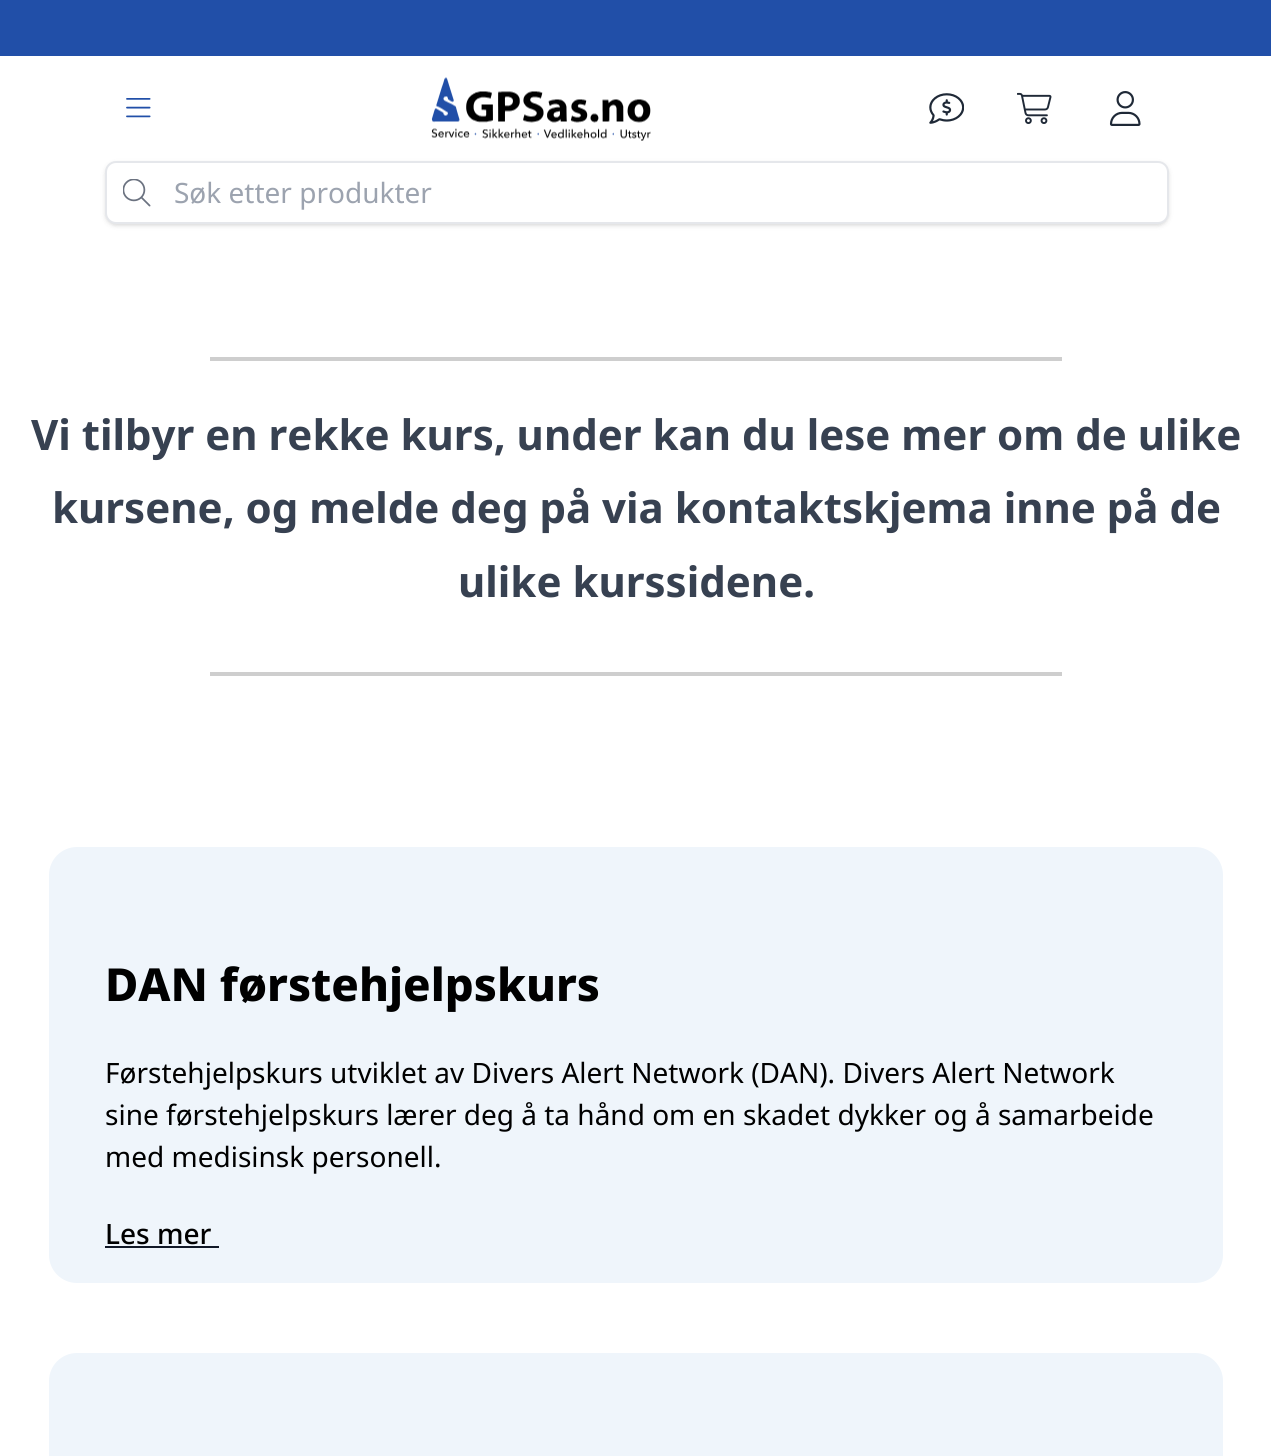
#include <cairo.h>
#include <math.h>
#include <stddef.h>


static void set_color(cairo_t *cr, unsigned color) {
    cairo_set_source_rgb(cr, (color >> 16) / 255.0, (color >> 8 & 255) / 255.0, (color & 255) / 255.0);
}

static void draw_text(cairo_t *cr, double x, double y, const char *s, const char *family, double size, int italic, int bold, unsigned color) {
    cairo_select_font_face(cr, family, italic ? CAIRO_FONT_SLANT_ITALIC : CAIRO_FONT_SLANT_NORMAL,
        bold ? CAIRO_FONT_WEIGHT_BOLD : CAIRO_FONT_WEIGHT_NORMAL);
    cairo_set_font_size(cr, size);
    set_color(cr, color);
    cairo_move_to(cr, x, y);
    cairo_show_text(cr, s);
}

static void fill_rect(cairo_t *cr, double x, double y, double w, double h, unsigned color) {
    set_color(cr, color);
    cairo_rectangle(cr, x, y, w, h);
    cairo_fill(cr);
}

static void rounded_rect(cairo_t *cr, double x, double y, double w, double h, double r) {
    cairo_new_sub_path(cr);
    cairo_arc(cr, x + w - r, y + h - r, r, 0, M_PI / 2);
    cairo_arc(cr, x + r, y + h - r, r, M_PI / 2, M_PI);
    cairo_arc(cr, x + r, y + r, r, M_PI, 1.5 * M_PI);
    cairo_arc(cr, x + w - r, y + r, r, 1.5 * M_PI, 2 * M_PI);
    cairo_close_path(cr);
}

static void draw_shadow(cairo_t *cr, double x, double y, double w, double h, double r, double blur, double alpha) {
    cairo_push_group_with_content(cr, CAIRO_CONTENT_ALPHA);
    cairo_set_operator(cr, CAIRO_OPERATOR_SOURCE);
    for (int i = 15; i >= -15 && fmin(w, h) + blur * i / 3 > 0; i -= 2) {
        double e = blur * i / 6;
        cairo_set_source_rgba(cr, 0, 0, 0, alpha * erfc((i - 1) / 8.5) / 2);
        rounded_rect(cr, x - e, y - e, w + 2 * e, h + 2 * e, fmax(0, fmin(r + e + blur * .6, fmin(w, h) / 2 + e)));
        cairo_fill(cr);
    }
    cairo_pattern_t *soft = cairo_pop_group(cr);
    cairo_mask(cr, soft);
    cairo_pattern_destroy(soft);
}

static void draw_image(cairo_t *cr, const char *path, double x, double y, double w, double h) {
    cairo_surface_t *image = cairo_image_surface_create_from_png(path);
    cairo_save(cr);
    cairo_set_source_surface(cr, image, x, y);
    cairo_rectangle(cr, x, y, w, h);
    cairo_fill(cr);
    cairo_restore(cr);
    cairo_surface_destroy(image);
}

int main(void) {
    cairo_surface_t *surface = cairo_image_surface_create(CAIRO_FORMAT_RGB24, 1271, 1456);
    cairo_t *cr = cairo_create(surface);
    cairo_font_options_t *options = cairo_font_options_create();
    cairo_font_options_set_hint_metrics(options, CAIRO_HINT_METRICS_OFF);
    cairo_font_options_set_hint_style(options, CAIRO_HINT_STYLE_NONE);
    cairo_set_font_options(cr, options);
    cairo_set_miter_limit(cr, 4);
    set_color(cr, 0xFFFFFF);
    cairo_paint(cr);
    fill_rect(cr, 0, 0, 1271, 56, 0x214FA8);
    draw_image(cr, "assets/img1.png", 126, 98, 25, 20);
    draw_image(cr, "assets/img2.png", 431, 77, 220, 64);
    draw_image(cr, "assets/img3.png", 929, 93, 35, 31);
    draw_image(cr, "assets/img4.png", 1017, 92, 35, 32);
    draw_image(cr, "assets/img5.png", 1109, 91, 32, 35);
    set_color(cr, 0x000000);
    draw_shadow(cr, 107, 165, 1060, 59, 9, 2, 0.1);
    draw_shadow(cr, 105, 163, 1064, 63, 11, 2.5, 0.1);
    set_color(cr, 0xFFFFFF);
    rounded_rect(cr, 106, 162, 1062, 61, 10);
    cairo_fill_preserve(cr);
    set_color(cr, 0xE5E7EB);
    cairo_stroke(cr);
    draw_image(cr, "assets/img6.png", 123, 179, 28, 28);
    draw_text(cr, 174, 203, "Søk etter produkter", "Noto Sans", 28, 0, 0, 0x9CA3AF);
    fill_rect(cr, 210, 357, 852, 4, 0xCECECE);
    draw_text(cr, 31, 450, "Vi tilbyr en rekke kurs, under kan du lese mer om de ulike", "Noto Sans", 42, 0, 1, 0x374151);
    draw_text(cr, 52, 523, "kursene, og melde deg på via kontaktskjema inne på de", "Noto Sans", 42, 0, 1, 0x374151);
    draw_text(cr, 458, 597, "ulike kurssidene.", "Noto Sans", 42, 0, 1, 0x374151);
    fill_rect(cr, 210, 672, 852, 4, 0xCECECE);
    set_color(cr, 0xEFF5FB);
    rounded_rect(cr, 49, 847, 1174, 436, 28);
    cairo_fill(cr);
    draw_text(cr, 105, 1001, "DAN førstehjelpskurs", "Noto Sans ExtraBold", 45.5, 0, 0, 0x000000);
    draw_text(cr, 105, 1083, "Førstehjelpskurs utviklet av Divers Alert Network (DAN). Divers Alert Network", "Noto Sans", 28, 0, 0, 0x000000);
    draw_text(cr, 105, 1125, "sine førstehjelpskurs lærer deg å ta hånd om en skadet dykker og å samarbeide", "Noto Sans", 28, 0, 0, 0x000000);
    draw_text(cr, 105, 1167, "med medisinsk personell.", "Noto Sans", 28, 0, 0, 0x000000);
    draw_text(cr, 105, 1244, "Les mer", "Noto Sans Medium", 28, 0, 0, 0x000000);
    fill_rect(cr, 105, 1246, 114, 2, 0x111827);
    set_color(cr, 0xEFF5FB);
    rounded_rect(cr, 49, 1353, 1174, 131, 28);
    cairo_fill(cr);
    cairo_surface_write_to_png(surface, "output.png");
    cairo_font_options_destroy(options);
    cairo_destroy(cr);
    cairo_surface_destroy(surface);
    return 0;
}
